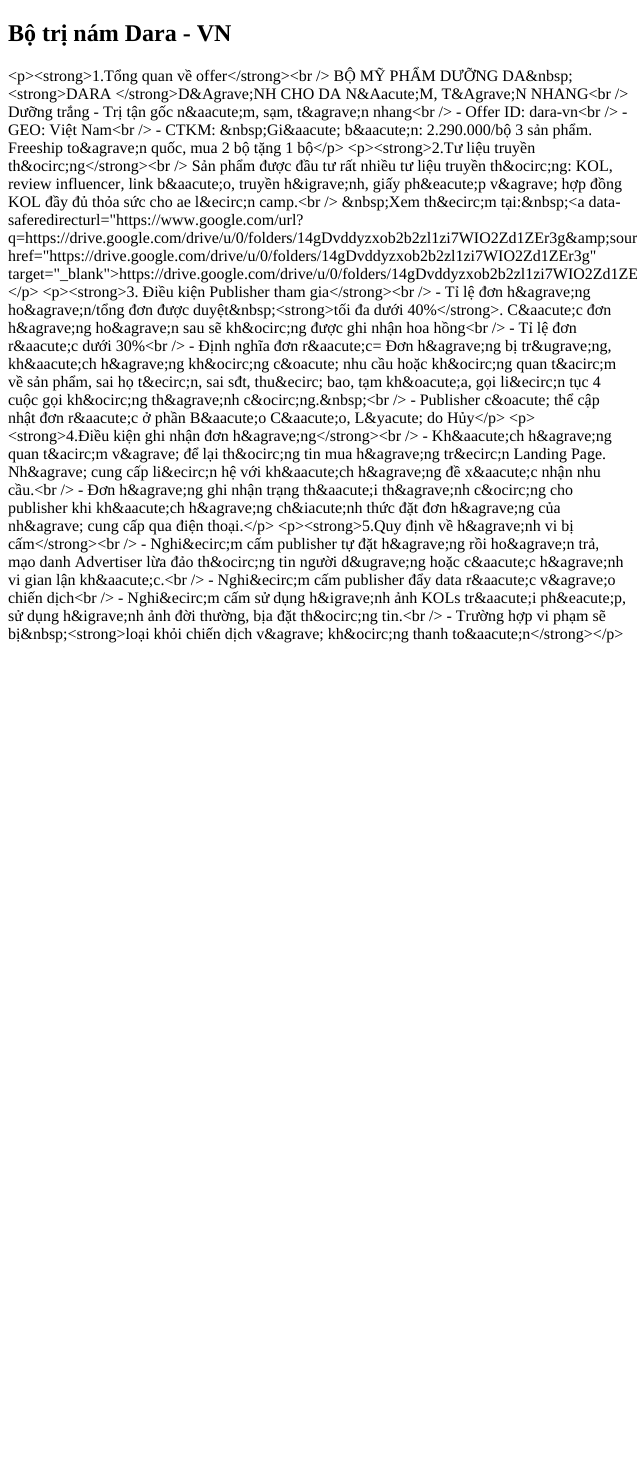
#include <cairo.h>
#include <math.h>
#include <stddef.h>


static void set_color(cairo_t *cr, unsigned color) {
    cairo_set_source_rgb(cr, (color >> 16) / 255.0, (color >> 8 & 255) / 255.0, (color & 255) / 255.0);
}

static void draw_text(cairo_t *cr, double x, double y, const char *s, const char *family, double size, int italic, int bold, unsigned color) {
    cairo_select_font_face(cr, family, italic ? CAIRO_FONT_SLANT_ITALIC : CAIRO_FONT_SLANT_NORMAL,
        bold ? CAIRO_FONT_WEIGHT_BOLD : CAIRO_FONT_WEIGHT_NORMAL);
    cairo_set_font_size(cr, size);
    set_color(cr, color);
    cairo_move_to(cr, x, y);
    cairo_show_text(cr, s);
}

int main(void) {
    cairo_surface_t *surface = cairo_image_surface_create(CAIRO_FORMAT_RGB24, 637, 1462);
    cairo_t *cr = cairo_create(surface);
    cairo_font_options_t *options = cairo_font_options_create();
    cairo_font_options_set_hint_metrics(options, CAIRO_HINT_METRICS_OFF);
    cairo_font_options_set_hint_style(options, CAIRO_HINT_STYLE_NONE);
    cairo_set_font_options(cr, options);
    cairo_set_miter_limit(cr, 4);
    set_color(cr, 0xFFFFFF);
    cairo_paint(cr);
    draw_text(cr, 8, 41, "Bộ trị nám Dara - VN", "Liberation Serif", 24, 0, 1, 0x000000);
    draw_text(cr, 8, 81, "<p><strong>1.Tổng quan về offer</strong><br /> BỘ MỸ PHẨM DƯỠNG DA&nbsp;", "Liberation Serif", 16, 0, 0, 0x000000);
    draw_text(cr, 8, 99, "<strong>DARA </strong>D&Agrave;NH CHO DA N&Aacute;M, T&Agrave;N NHANG<br />", "Liberation Serif", 16, 0, 0, 0x000000);
    draw_text(cr, 8, 117, "Dưỡng trắng - Trị tận gốc n&aacute;m, sạm, t&agrave;n nhang<br /> - Offer ID: dara-vn<br /> -", "Liberation Serif", 16, 0, 0, 0x000000);
    draw_text(cr, 8, 135, "GEO: Việt Nam<br /> - CTKM: &nbsp;Gi&aacute; b&aacute;n: 2.290.000/bộ 3 sản phẩm.", "Liberation Serif", 16, 0, 0, 0x000000);
    draw_text(cr, 8, 153, "Freeship to&agrave;n quốc, mua 2 bộ tặng 1 bộ</p> <p><strong>2.Tư liệu truyền", "Liberation Serif", 16, 0, 0, 0x000000);
    draw_text(cr, 8, 171, "th&ocirc;ng</strong><br /> Sản phẩm được đầu tư rất nhiều tư liệu truyền th&ocirc;ng: KOL,", "Liberation Serif", 16, 0, 0, 0x000000);
    draw_text(cr, 8, 189, "review influencer, link b&aacute;o, truyền h&igrave;nh, giấy ph&eacute;p v&agrave; hợp đồng", "Liberation Serif", 16, 0, 0, 0x000000);
    draw_text(cr, 8, 207, "KOL đầy đủ thỏa sức cho ae l&ecirc;n camp.<br /> &nbsp;Xem th&ecirc;m tại:&nbsp;<a data-", "Liberation Serif", 16, 0, 0, 0x000000);
    draw_text(cr, 8, 225, "saferedirecturl=\"https://www.google.com/url?", "Liberation Serif", 16, 0, 0, 0x000000);
    draw_text(cr, 8, 243, "q=https://drive.google.com/drive/u/0/folders/14gDvddyzxob2b2zl1zi7WIO2Zd1ZEr3g&amp;sour", "Liberation Serif", 16, 0, 0, 0x000000);
    draw_text(cr, 8, 261, "href=\"https://drive.google.com/drive/u/0/folders/14gDvddyzxob2b2zl1zi7WIO2Zd1ZEr3g\"", "Liberation Serif", 16, 0, 0, 0x000000);
    draw_text(cr, 8, 279, "target=\"_blank\">https://drive.google.com/drive/u/0/folders/14gDvddyzxob2b2zl1zi7WIO2Zd1ZE", "Liberation Serif", 16, 0, 0, 0x000000);
    draw_text(cr, 8, 297, "</p> <p><strong>3. Điều kiện Publisher tham gia</strong><br /> - Tỉ lệ đơn h&agrave;ng", "Liberation Serif", 16, 0, 0, 0x000000);
    draw_text(cr, 8, 315, "ho&agrave;n/tổng đơn được duyệt&nbsp;<strong>tối đa dưới 40%</strong>. C&aacute;c đơn", "Liberation Serif", 16, 0, 0, 0x000000);
    draw_text(cr, 8, 333, "h&agrave;ng ho&agrave;n sau sẽ kh&ocirc;ng được ghi nhận hoa hồng<br /> - Tỉ lệ đơn", "Liberation Serif", 16, 0, 0, 0x000000);
    draw_text(cr, 8, 351, "r&aacute;c dưới 30%<br /> - Định nghĩa đơn r&aacute;c= Đơn h&agrave;ng bị tr&ugrave;ng,", "Liberation Serif", 16, 0, 0, 0x000000);
    draw_text(cr, 8, 369, "kh&aacute;ch h&agrave;ng kh&ocirc;ng c&oacute; nhu cầu hoặc kh&ocirc;ng quan t&acirc;m", "Liberation Serif", 16, 0, 0, 0x000000);
    draw_text(cr, 8, 387, "về sản phẩm, sai họ t&ecirc;n, sai sđt, thu&ecirc; bao, tạm kh&oacute;a, gọi li&ecirc;n tục 4", "Liberation Serif", 16, 0, 0, 0x000000);
    draw_text(cr, 8, 405, "cuộc gọi kh&ocirc;ng th&agrave;nh c&ocirc;ng.&nbsp;<br /> - Publisher c&oacute; thể cập", "Liberation Serif", 16, 0, 0, 0x000000);
    draw_text(cr, 8, 423, "nhật đơn r&aacute;c ở phần B&aacute;o C&aacute;o, L&yacute; do Hủy</p> <p>", "Liberation Serif", 16, 0, 0, 0x000000);
    draw_text(cr, 8, 441, "<strong>4.Điều kiện ghi nhận đơn h&agrave;ng</strong><br /> - Kh&aacute;ch h&agrave;ng", "Liberation Serif", 16, 0, 0, 0x000000);
    draw_text(cr, 8, 459, "quan t&acirc;m v&agrave; để lại th&ocirc;ng tin mua h&agrave;ng tr&ecirc;n Landing Page.", "Liberation Serif", 16, 0, 0, 0x000000);
    draw_text(cr, 8, 477, "Nh&agrave; cung cấp li&ecirc;n hệ với kh&aacute;ch h&agrave;ng đề x&aacute;c nhận nhu", "Liberation Serif", 16, 0, 0, 0x000000);
    draw_text(cr, 8, 495, "cầu.<br /> - Đơn h&agrave;ng ghi nhận trạng th&aacute;i th&agrave;nh c&ocirc;ng cho", "Liberation Serif", 16, 0, 0, 0x000000);
    draw_text(cr, 8, 513, "publisher khi kh&aacute;ch h&agrave;ng ch&iacute;nh thức đặt đơn h&agrave;ng của", "Liberation Serif", 16, 0, 0, 0x000000);
    draw_text(cr, 8, 531, "nh&agrave; cung cấp qua điện thoại.</p> <p><strong>5.Quy định về h&agrave;nh vi bị", "Liberation Serif", 16, 0, 0, 0x000000);
    draw_text(cr, 8, 549, "cấm</strong><br /> - Nghi&ecirc;m cấm publisher tự đặt h&agrave;ng rồi ho&agrave;n trả,", "Liberation Serif", 16, 0, 0, 0x000000);
    draw_text(cr, 8, 567, "mạo danh Advertiser lừa đảo th&ocirc;ng tin người d&ugrave;ng hoặc c&aacute;c h&agrave;nh", "Liberation Serif", 16, 0, 0, 0x000000);
    draw_text(cr, 8, 585, "vi gian lận kh&aacute;c.<br /> - Nghi&ecirc;m cấm publisher đẩy data r&aacute;c v&agrave;o", "Liberation Serif", 16, 0, 0, 0x000000);
    draw_text(cr, 8, 603, "chiến dịch<br /> - Nghi&ecirc;m cấm sử dụng h&igrave;nh ảnh KOLs tr&aacute;i ph&eacute;p,", "Liberation Serif", 16, 0, 0, 0x000000);
    draw_text(cr, 8, 621, "sử dụng h&igrave;nh ảnh đời thường, bịa đặt th&ocirc;ng tin.<br /> - Trường hợp vi phạm sẽ", "Liberation Serif", 16, 0, 0, 0x000000);
    draw_text(cr, 8, 639, "bị&nbsp;<strong>loại khỏi chiến dịch v&agrave; kh&ocirc;ng thanh to&aacute;n</strong></p>", "Liberation Serif", 16, 0, 0, 0x000000);
    cairo_surface_write_to_png(surface, "output.png");
    cairo_font_options_destroy(options);
    cairo_destroy(cr);
    cairo_surface_destroy(surface);
    return 0;
}
